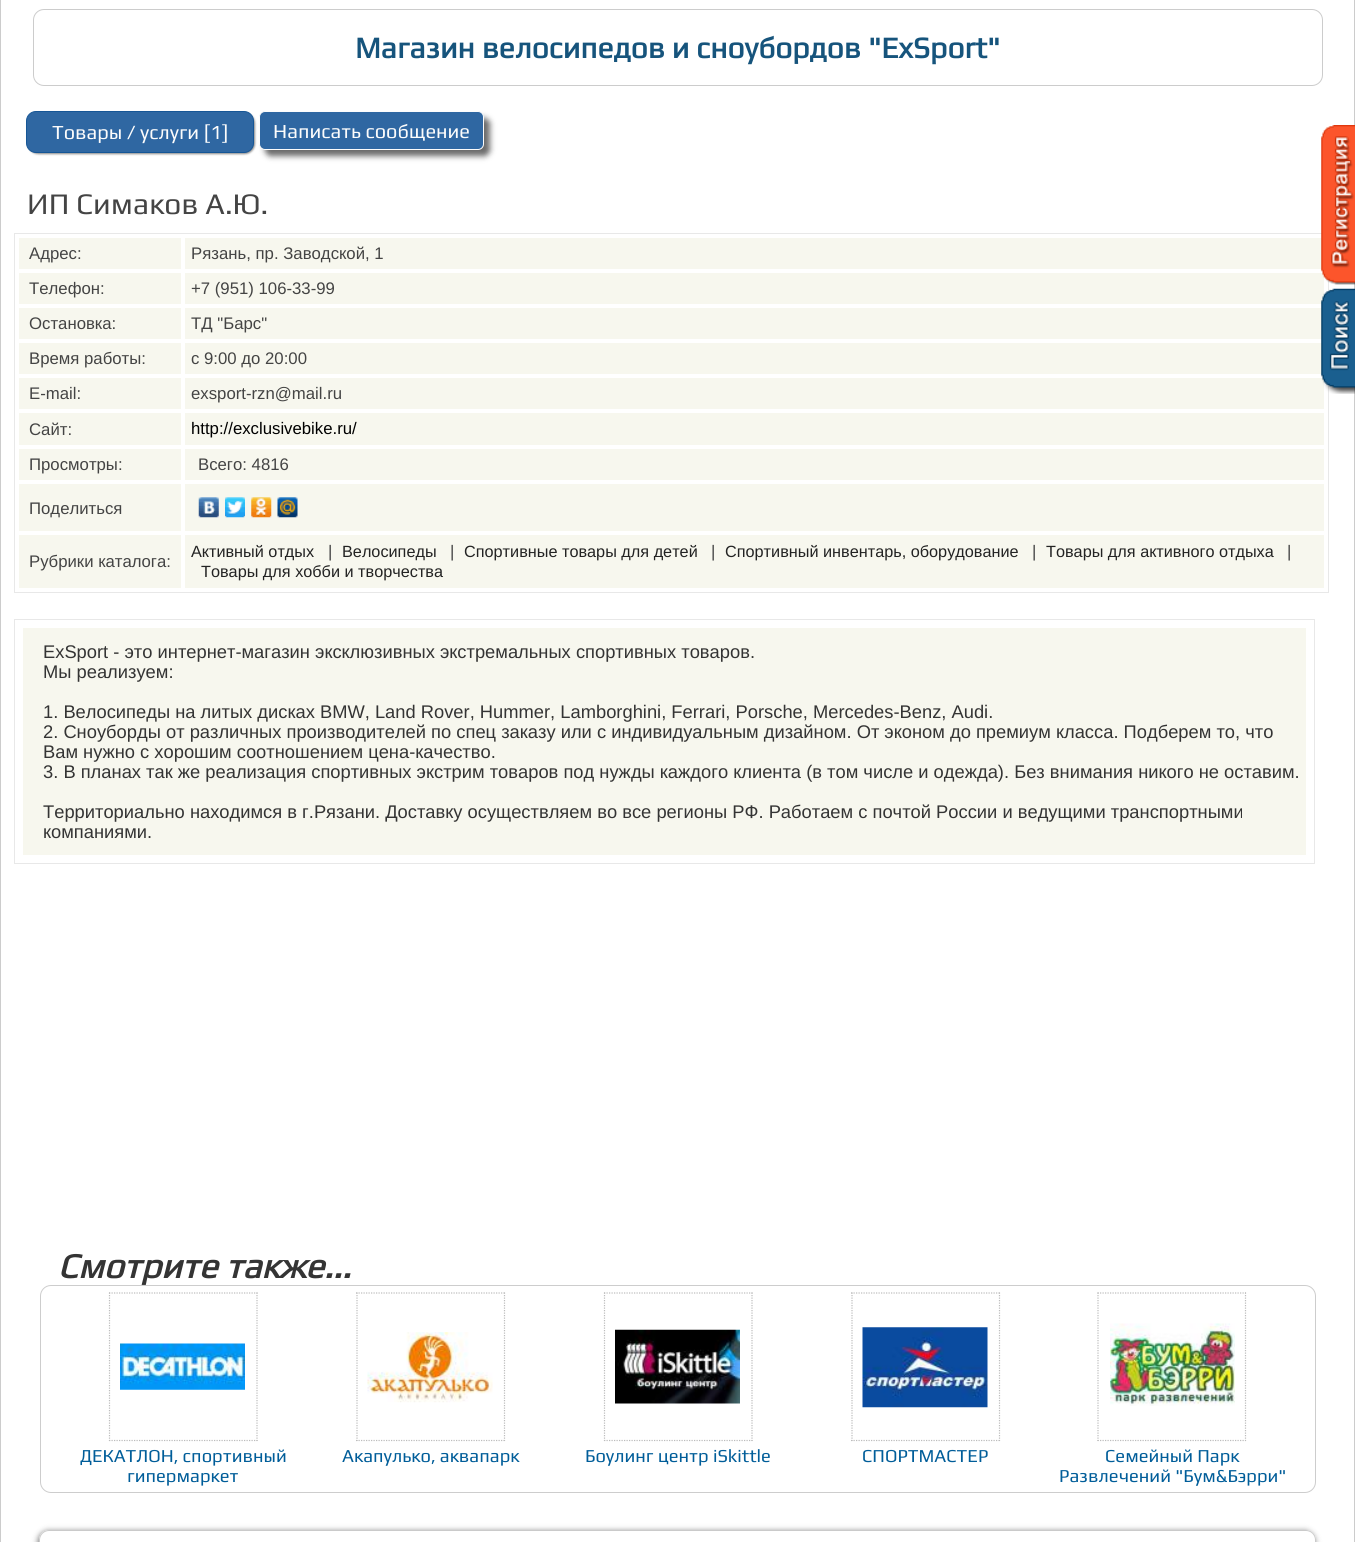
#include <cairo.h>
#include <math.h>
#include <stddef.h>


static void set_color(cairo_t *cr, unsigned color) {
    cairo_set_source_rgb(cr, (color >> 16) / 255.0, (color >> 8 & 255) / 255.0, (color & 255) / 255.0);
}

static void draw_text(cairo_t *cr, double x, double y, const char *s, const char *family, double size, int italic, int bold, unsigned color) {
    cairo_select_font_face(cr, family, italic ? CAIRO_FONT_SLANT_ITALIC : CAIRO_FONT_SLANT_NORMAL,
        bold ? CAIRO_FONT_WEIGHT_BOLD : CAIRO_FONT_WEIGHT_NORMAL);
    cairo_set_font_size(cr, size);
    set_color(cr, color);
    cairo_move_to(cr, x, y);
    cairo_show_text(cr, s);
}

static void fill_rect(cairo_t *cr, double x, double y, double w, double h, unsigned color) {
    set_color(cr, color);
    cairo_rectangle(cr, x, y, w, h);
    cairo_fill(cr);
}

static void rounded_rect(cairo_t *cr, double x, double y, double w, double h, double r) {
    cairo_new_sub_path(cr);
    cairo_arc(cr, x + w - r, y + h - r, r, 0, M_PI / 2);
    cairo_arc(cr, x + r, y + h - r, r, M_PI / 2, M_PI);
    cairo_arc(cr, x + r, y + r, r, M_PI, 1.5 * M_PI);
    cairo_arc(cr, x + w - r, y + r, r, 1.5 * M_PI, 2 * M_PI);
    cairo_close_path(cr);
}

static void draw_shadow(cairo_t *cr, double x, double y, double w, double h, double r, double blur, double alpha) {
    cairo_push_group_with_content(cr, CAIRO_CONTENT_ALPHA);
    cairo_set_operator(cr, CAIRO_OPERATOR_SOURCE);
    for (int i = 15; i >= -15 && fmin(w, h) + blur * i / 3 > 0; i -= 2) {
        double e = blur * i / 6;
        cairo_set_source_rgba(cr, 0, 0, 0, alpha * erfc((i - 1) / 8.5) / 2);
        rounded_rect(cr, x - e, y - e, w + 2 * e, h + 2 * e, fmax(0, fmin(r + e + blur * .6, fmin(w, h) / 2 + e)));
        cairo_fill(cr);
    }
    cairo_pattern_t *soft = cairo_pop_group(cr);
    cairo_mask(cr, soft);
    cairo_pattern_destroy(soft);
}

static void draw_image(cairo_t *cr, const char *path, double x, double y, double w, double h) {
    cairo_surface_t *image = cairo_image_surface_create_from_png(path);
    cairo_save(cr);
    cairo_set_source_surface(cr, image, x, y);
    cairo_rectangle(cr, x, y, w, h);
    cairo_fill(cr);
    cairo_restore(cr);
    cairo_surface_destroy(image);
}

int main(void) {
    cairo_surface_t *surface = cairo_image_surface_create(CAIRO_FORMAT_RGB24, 1355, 1542);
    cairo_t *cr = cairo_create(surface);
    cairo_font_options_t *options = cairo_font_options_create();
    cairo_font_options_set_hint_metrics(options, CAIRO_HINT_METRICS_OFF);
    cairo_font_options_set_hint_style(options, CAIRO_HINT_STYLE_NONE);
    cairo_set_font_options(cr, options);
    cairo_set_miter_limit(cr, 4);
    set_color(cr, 0xFFFFFF);
    cairo_paint(cr);
    cairo_rectangle(cr, 0.5, -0.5, 1354, 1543);
    set_color(cr, 0xCCCCCC);
    cairo_set_line_width(cr, 1);
    cairo_stroke(cr);
    rounded_rect(cr, 33.5, 9.5, 1289, 76, 10.5);
    cairo_stroke(cr);
    draw_text(cr, 355, 58, "Магазин велосипедов и сноубордов \"ExSport\"", "Play", 30, 0, 1, 0x16547C);
    set_color(cr, 0x898989);
    draw_shadow(cr, 28, 113, 227, 41, 10, 1, 1);
    set_color(cr, 0x2F67A2);
    rounded_rect(cr, 26.5, 111.5, 227, 41, 9.5);
    cairo_fill_preserve(cr);
    set_color(cr, 0x165696);
    cairo_stroke(cr);
    draw_text(cr, 52, 139, "Товары / услуги [1]", "Play", 20, 0, 0, 0xFCFCFC);
    set_color(cr, 0x444444);
    draw_shadow(cr, 265, 118, 225, 38, 6, 3, 0.8);
    set_color(cr, 0x2F67A2);
    rounded_rect(cr, 259.5, 111.5, 224, 38, 5.5);
    cairo_fill_preserve(cr);
    set_color(cr, 0xFCFCFC);
    cairo_stroke(cr);
    draw_text(cr, 273, 138, "Написать сообщение", "Play", 20, 0, 0, 0xFCFCFC);
    draw_text(cr, 27, 214, "ИП Симаков А.Ю.", "Play", 30, 0, 0, 0x444444);
    cairo_rectangle(cr, 14.5, 233.5, 1314, 359);
    set_color(cr, 0xE8E8E8);
    cairo_stroke(cr);
    fill_rect(cr, 19, 238, 162, 31, 0xF7F7EE);
    draw_text(cr, 29, 259, "Адрес:", "Liberation Sans", 16.75, 0, 0, 0x444444);
    fill_rect(cr, 185, 238, 1137, 31, 0xF7F7EE);
    draw_text(cr, 191, 259, "Рязань, пр. Заводской, 1", "Liberation Sans", 16.75, 0, 0, 0x444444);
    fill_rect(cr, 19, 273, 162, 31, 0xF7F7EE);
    draw_text(cr, 29, 294, "Телефон:", "Liberation Sans", 16.75, 0, 0, 0x444444);
    fill_rect(cr, 185, 273, 1139, 31, 0xF7F7EE);
    draw_text(cr, 191, 294, "+7 (951) 106-33-99", "Liberation Sans", 16.75, 0, 0, 0x444444);
    fill_rect(cr, 19, 308, 162, 31, 0xF7F7EE);
    draw_text(cr, 29, 329, "Остановка:", "Liberation Sans", 16.75, 0, 0, 0x444444);
    fill_rect(cr, 185, 308, 1137, 31, 0xF7F7EE);
    draw_text(cr, 191, 329, "ТД \"Барс\"", "Liberation Sans", 16.75, 0, 0, 0x444444);
    fill_rect(cr, 19, 343, 162, 31, 0xF7F7EE);
    draw_text(cr, 29, 364, "Время работы:", "Liberation Sans", 16.75, 0, 0, 0x444444);
    fill_rect(cr, 185, 343, 1137, 31, 0xF7F7EE);
    draw_text(cr, 191, 364, "с 9:00 до 20:00", "Liberation Sans", 16.75, 0, 0, 0x444444);
    fill_rect(cr, 19, 378, 162, 31, 0xF7F7EE);
    draw_text(cr, 29, 399, "E-mail:", "Liberation Sans", 16.75, 0, 0, 0x444444);
    fill_rect(cr, 185, 378, 1139, 31, 0xF7F7EE);
    draw_text(cr, 191, 399, "exsport-rzn@mail.ru", "Liberation Sans", 16.75, 0, 0, 0x444444);
    fill_rect(cr, 19, 413, 162, 32, 0xF7F7EE);
    draw_text(cr, 29, 435, "Сайт:", "Liberation Sans", 16.75, 0, 0, 0x444444);
    fill_rect(cr, 185, 413, 1139, 32, 0xF7F7EE);
    draw_text(cr, 191, 434, "http://exclusivebike.ru/", "Liberation Sans", 16.75, 0, 0, 0x000000);
    fill_rect(cr, 19, 449, 162, 31, 0xF7F7EE);
    draw_text(cr, 29, 470, "Просмотры:", "Liberation Sans", 16.75, 0, 0, 0x444444);
    fill_rect(cr, 185, 449, 1139, 31, 0xF7F7EE);
    draw_text(cr, 198, 470, "Всего: 4816", "Liberation Sans", 16.75, 0, 0, 0x444444);
    fill_rect(cr, 19, 484, 162, 47, 0xF7F7EE);
    draw_text(cr, 29, 514, "Поделиться", "Liberation Sans", 16.75, 0, 0, 0x444444);
    fill_rect(cr, 185, 484, 1139, 47, 0xF7F7EE);
    draw_image(cr, "assets/img1.png", 198, 497, 21, 21);
    draw_image(cr, "assets/img2.png", 225, 497, 20, 21);
    draw_image(cr, "assets/img3.png", 251, 497, 21, 21);
    draw_image(cr, "assets/img4.png", 277, 497, 21, 21);
    fill_rect(cr, 19, 535, 162, 53, 0xF7F7EE);
    draw_text(cr, 29, 567, "Рубрики каталога:", "Liberation Sans", 16.75, 0, 0, 0x444444);
    fill_rect(cr, 185, 535, 1139, 53, 0xF7F7EE);
    draw_text(cr, 191, 557, "Активный отдых", "Liberation Sans", 16.25, 0, 0, 0x232323);
    draw_text(cr, 328, 557, "|", "Liberation Sans", 16.75, 0, 0, 0x444444);
    draw_text(cr, 342, 557, "Велосипеды", "Liberation Sans", 16.25, 0, 0, 0x232323);
    draw_text(cr, 450, 557, "|", "Liberation Sans", 16.75, 0, 0, 0x444444);
    draw_text(cr, 464, 557, "Спортивные товары для детей", "Liberation Sans", 16.25, 0, 0, 0x232323);
    draw_text(cr, 711, 557, "|", "Liberation Sans", 16.75, 0, 0, 0x444444);
    draw_text(cr, 725, 557, "Спортивный инвентарь, оборудование", "Liberation Sans", 16.25, 0, 0, 0x232323);
    draw_text(cr, 1032, 557, "|", "Liberation Sans", 16.75, 0, 0, 0x444444);
    draw_text(cr, 1046, 557, "Товары для активного отдыха", "Liberation Sans", 16.25, 0, 0, 0x232323);
    draw_text(cr, 1287, 557, "|", "Liberation Sans", 16.75, 0, 0, 0x444444);
    draw_text(cr, 201, 577, "Товары для хобби и творчества", "Liberation Sans", 16.25, 0, 0, 0x232323);
    cairo_rectangle(cr, 14.5, 619.5, 1300, 244);
    set_color(cr, 0xE8E8E8);
    cairo_stroke(cr);
    fill_rect(cr, 23, 628, 1283, 227, 0xF7F7EE);
    draw_text(cr, 43, 658, "ExSport - это интернет-магазин эксклюзивных экстремальных спортивных товаров.", "Liberation Sans", 18.33, 0, 0, 0x343434);
    draw_text(cr, 43, 678, "Мы реализуем:", "Liberation Sans", 18.33, 0, 0, 0x343434);
    draw_text(cr, 43, 718, "1. Велосипеды на литых дисках BMW, Land Rover, Hummer, Lamborghini, Ferrari, Porsche, Mercedes-Benz, Audi.", "Liberation Sans", 18.33, 0, 0, 0x343434);
    draw_text(cr, 43, 738, "2. Сноуборды от различных производителей по спец заказу или с индивидуальным дизайном. От эконом до премиум класса. Подберем то, что", "Liberation Sans", 18.33, 0, 0, 0x343434);
    draw_text(cr, 43, 758, "Вам нужно с хорошим соотношением цена-качество.", "Liberation Sans", 18.33, 0, 0, 0x343434);
    draw_text(cr, 43, 778, "3. В планах так же реализация спортивных экстрим товаров под нужды каждого клиента (в том числе и одежда). Без внимания никого не оставим.", "Liberation Sans", 18.33, 0, 0, 0x343434);
    draw_text(cr, 43, 818, "Территориально находимся в г.Рязани. Доставку осуществляем во все регионы РФ. Работаем с почтой России и ведущими транспортными", "Liberation Sans", 18.33, 0, 0, 0x343434);
    draw_text(cr, 43, 838, "компаниями.", "Liberation Sans", 18.33, 0, 0, 0x343434);
    draw_text(cr, 58, 1278, "Смотрите также...", "Play", 35, 1, 1, 0x343434);
    rounded_rect(cr, 40.5, 1285.5, 1275, 207, 10.5);
    set_color(cr, 0xCDCDCD);
    cairo_stroke(cr);
    draw_image(cr, "assets/img5.png", 120, 1343, 125, 47);
    cairo_new_path(cr);
    cairo_move_to(cr, 109, 1293);
    cairo_line_to(cr, 257.5, 1293);
    set_color(cr, 0xBCBCBC);
    cairo_set_line_width(cr, 1.2);
    cairo_set_dash(cr, (double[]){1.25, 1.25}, 2, 0);
    cairo_stroke(cr);
    cairo_new_path(cr);
    cairo_move_to(cr, 257, 1292.5);
    cairo_line_to(cr, 257, 1441);
    cairo_stroke(cr);
    cairo_new_path(cr);
    cairo_move_to(cr, 109, 1440.5);
    cairo_line_to(cr, 257.5, 1440.5);
    cairo_stroke(cr);
    cairo_new_path(cr);
    cairo_move_to(cr, 109.5, 1292.5);
    cairo_line_to(cr, 109.5, 1441);
    cairo_stroke(cr);
    draw_text(cr, 80, 1462, "ДЕКАТЛОН, спортивный", "Play", 18.33, 0, 0, 0x005D99);
    draw_text(cr, 127, 1482, "гипермаркет", "Play", 18.33, 0, 0, 0x005D99);
    draw_image(cr, "assets/img6.png", 367, 1332, 126, 71);
    cairo_new_path(cr);
    cairo_move_to(cr, 356, 1293);
    cairo_line_to(cr, 505, 1293);
    set_color(cr, 0xBCBCBC);
    cairo_stroke(cr);
    cairo_new_path(cr);
    cairo_move_to(cr, 504.5, 1292.5);
    cairo_line_to(cr, 504.5, 1441);
    cairo_stroke(cr);
    cairo_new_path(cr);
    cairo_move_to(cr, 356, 1440.5);
    cairo_line_to(cr, 505, 1440.5);
    cairo_stroke(cr);
    cairo_new_path(cr);
    cairo_move_to(cr, 357, 1292.5);
    cairo_line_to(cr, 357, 1441);
    cairo_stroke(cr);
    draw_text(cr, 342, 1462, "Акапулько, аквапарк", "Play", 18.33, 0, 0, 0x005D99);
    draw_image(cr, "assets/img7.png", 615, 1329, 125, 75);
    cairo_new_path(cr);
    cairo_move_to(cr, 604, 1293);
    cairo_line_to(cr, 752.5, 1293);
    set_color(cr, 0xBCBCBC);
    cairo_stroke(cr);
    cairo_new_path(cr);
    cairo_move_to(cr, 752, 1292.5);
    cairo_line_to(cr, 752, 1441);
    cairo_stroke(cr);
    cairo_new_path(cr);
    cairo_move_to(cr, 604, 1440.5);
    cairo_line_to(cr, 752.5, 1440.5);
    cairo_stroke(cr);
    cairo_new_path(cr);
    cairo_move_to(cr, 604.5, 1292.5);
    cairo_line_to(cr, 604.5, 1441);
    cairo_stroke(cr);
    draw_text(cr, 585, 1462, "Боулинг центр iSkittle", "Play", 18.33, 0, 0, 0x005D99);
    draw_image(cr, "assets/img8.png", 862, 1327, 126, 81);
    cairo_new_path(cr);
    cairo_move_to(cr, 851, 1293);
    cairo_line_to(cr, 1000, 1293);
    set_color(cr, 0xBCBCBC);
    cairo_stroke(cr);
    cairo_new_path(cr);
    cairo_move_to(cr, 999.5, 1292.5);
    cairo_line_to(cr, 999.5, 1441);
    cairo_stroke(cr);
    cairo_new_path(cr);
    cairo_move_to(cr, 851, 1440.5);
    cairo_line_to(cr, 1000, 1440.5);
    cairo_stroke(cr);
    cairo_new_path(cr);
    cairo_move_to(cr, 852, 1292.5);
    cairo_line_to(cr, 852, 1441);
    cairo_stroke(cr);
    draw_text(cr, 862, 1462, "СПОРТМАСТЕР", "Play", 18.33, 0, 0, 0x005D99);
    draw_image(cr, "assets/img9.png", 1110, 1323, 125, 83);
    cairo_new_path(cr);
    cairo_move_to(cr, 1097.5, 1293);
    cairo_line_to(cr, 1246, 1293);
    set_color(cr, 0xBCBCBC);
    cairo_stroke(cr);
    cairo_new_path(cr);
    cairo_move_to(cr, 1245.5, 1292.5);
    cairo_line_to(cr, 1245.5, 1441);
    cairo_stroke(cr);
    cairo_new_path(cr);
    cairo_move_to(cr, 1097.5, 1440.5);
    cairo_line_to(cr, 1246, 1440.5);
    cairo_stroke(cr);
    cairo_new_path(cr);
    cairo_move_to(cr, 1098, 1292.5);
    cairo_line_to(cr, 1098, 1441);
    cairo_stroke(cr);
    draw_text(cr, 1105, 1462, "Семейный Парк", "Play", 18.33, 0, 0, 0x005D99);
    draw_text(cr, 1059, 1482, "Развлечений \"Бум&Бэрри\"", "Play", 18.33, 0, 0, 0x005D99);
    cairo_save(cr);
    cairo_set_fill_rule(cr, CAIRO_FILL_RULE_EVEN_ODD);
    cairo_new_path(cr);
    cairo_move_to(cr, 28, 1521);
    cairo_line_to(cr, 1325, 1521);
    cairo_line_to(cr, 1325, 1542);
    cairo_line_to(cr, 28, 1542);
    cairo_close_path(cr);
    cairo_move_to(cr, 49, 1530);
    cairo_line_to(cr, 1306, 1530);
    cairo_curve_to(cr, 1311.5, 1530, 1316, 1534.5, 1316, 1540);
    cairo_line_to(cr, 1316, 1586);
    cairo_curve_to(cr, 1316, 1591.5, 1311.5, 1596, 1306, 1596);
    cairo_line_to(cr, 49, 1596);
    cairo_curve_to(cr, 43.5, 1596, 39, 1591.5, 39, 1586);
    cairo_line_to(cr, 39, 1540);
    cairo_curve_to(cr, 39, 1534.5, 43.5, 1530, 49, 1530);
    cairo_close_path(cr);
    cairo_clip(cr);
    set_color(cr, 0x5A5A5A);
    draw_shadow(cr, 38, 1531, 1277, 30, 10, 3, 0.8);
    cairo_restore(cr);
    rounded_rect(cr, 39.5, 1530.5, 1276, 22, 9.5);
    set_color(cr, 0xCACACA);
    cairo_set_line_width(cr, 1);
    cairo_set_dash(cr, NULL, 0, 0);
    cairo_stroke(cr);
    draw_image(cr, "assets/img10.png", 1321, 125, 34, 160);
    draw_image(cr, "assets/img11.png", 1321, 288, 34, 106);
    cairo_surface_write_to_png(surface, "output.png");
    cairo_font_options_destroy(options);
    cairo_destroy(cr);
    cairo_surface_destroy(surface);
    return 0;
}
